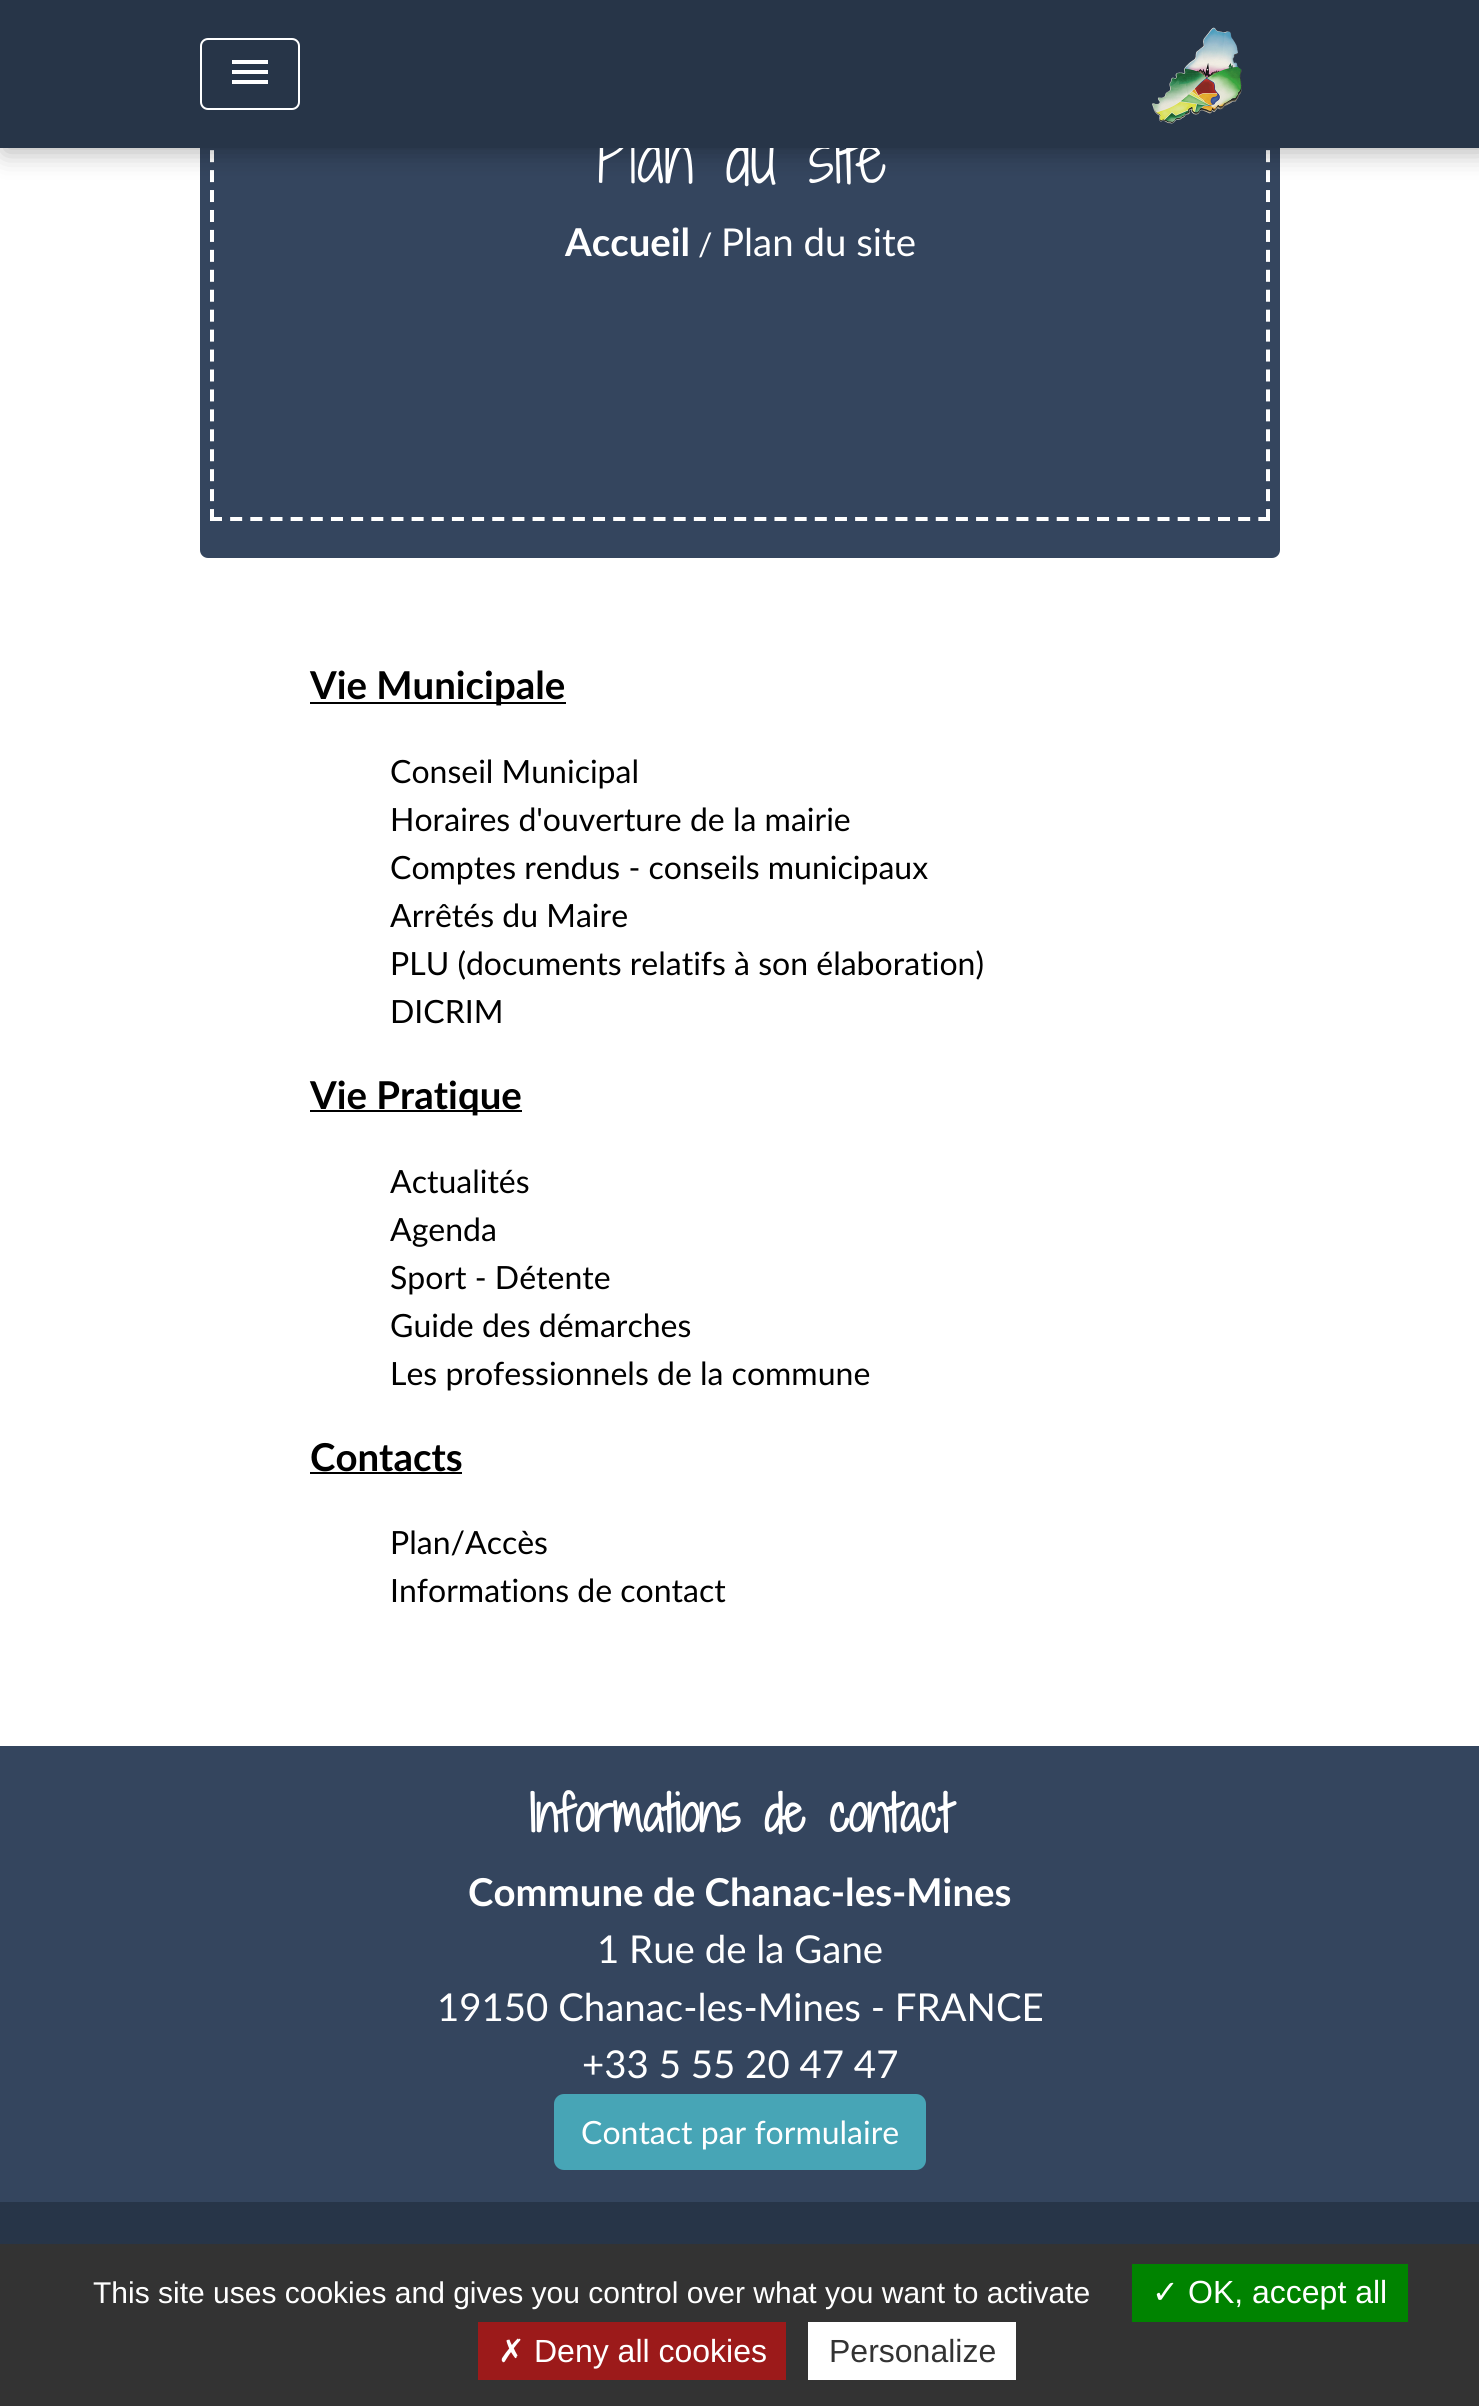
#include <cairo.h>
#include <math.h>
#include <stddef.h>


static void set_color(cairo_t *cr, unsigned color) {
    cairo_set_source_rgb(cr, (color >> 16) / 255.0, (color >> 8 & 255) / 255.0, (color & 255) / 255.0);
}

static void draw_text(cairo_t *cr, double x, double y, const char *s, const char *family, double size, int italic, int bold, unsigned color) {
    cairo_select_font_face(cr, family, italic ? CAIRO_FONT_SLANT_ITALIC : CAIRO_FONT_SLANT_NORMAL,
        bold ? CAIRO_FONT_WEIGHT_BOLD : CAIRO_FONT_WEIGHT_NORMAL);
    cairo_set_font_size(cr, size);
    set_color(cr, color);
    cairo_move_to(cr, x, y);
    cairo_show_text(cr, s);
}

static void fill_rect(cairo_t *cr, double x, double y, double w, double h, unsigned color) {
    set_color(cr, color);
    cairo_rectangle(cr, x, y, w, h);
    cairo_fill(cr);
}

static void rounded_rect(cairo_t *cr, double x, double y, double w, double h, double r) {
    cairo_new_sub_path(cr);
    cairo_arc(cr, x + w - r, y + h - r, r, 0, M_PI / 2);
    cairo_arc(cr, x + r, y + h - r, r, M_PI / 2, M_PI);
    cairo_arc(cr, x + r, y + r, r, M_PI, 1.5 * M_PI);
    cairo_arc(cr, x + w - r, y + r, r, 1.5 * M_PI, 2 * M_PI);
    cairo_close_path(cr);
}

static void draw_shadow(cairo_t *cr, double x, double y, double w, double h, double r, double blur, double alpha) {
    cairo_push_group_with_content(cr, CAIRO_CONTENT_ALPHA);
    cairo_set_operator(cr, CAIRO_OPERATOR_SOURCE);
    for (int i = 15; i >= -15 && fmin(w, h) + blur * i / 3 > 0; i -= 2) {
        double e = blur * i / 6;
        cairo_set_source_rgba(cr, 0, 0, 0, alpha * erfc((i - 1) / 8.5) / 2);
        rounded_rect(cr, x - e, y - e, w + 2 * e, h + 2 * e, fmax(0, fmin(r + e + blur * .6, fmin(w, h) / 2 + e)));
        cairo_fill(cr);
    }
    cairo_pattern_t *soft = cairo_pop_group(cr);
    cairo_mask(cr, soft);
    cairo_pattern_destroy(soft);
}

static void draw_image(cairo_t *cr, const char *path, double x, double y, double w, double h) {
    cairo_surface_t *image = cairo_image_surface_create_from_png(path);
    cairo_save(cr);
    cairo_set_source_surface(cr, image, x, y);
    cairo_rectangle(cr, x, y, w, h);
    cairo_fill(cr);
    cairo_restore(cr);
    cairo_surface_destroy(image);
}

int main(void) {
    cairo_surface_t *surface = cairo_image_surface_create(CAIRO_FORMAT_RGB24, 1479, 2406);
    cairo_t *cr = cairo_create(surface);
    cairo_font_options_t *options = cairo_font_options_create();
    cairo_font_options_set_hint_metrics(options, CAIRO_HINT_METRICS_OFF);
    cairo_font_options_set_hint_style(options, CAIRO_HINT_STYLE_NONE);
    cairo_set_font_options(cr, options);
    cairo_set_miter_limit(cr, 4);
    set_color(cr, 0xFFFFFF);
    cairo_paint(cr);
    set_color(cr, 0x34455E);
    rounded_rect(cr, 200, -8, 1080, 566, 8);
    cairo_fill(cr);
    cairo_new_path(cr);
    cairo_move_to(cr, 1268, -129);
    cairo_line_to(cr, 1268, 521);
    set_color(cr, 0xFFFFFF);
    cairo_set_line_width(cr, 4);
    cairo_set_dash(cr, (double[]){12, 7.94}, 2, 0);
    cairo_stroke(cr);
    cairo_new_path(cr);
    cairo_move_to(cr, 210, 519);
    cairo_line_to(cr, 1270, 519);
    cairo_set_dash(cr, (double[]){12, 8.16}, 2, 0);
    cairo_stroke(cr);
    cairo_new_path(cr);
    cairo_move_to(cr, 212, -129);
    cairo_line_to(cr, 212, 521);
    cairo_set_dash(cr, (double[]){12, 7.94}, 2, 0);
    cairo_stroke(cr);
    set_color(cr, 0x000000);
    draw_shadow(cr, 4, 4, 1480, 148, 0, 13, 0.3);
    draw_text(cr, 594, 183, "Plan du site", "Shadows Into Light Two Light", 64, 0, 0, 0xFFFFFF);
    fill_rect(cr, 0, 0, 1479, 148, 0x273548);
    rounded_rect(cr, 201, 39, 98, 70, 7);
    set_color(cr, 0xFFFFFF);
    cairo_set_line_width(cr, 2);
    cairo_set_dash(cr, NULL, 0, 0);
    cairo_stroke(cr);
    cairo_new_path(cr);
    cairo_move_to(cr, 232, 60);
    cairo_line_to(cr, 268, 60);
    cairo_line_to(cr, 268, 64);
    cairo_line_to(cr, 232, 64);
    cairo_close_path(cr);
    cairo_move_to(cr, 232, 74);
    cairo_line_to(cr, 232, 70);
    cairo_line_to(cr, 268, 70);
    cairo_line_to(cr, 268, 74);
    cairo_close_path(cr);
    cairo_move_to(cr, 232, 84);
    cairo_line_to(cr, 232, 80);
    cairo_line_to(cr, 268, 80);
    cairo_line_to(cr, 268, 84);
    cairo_close_path(cr);
    cairo_fill(cr);
    draw_image(cr, "assets/img1.png", 1152, 27, 90, 97);
    draw_text(cr, 565, 256, "Accueil", "Lato", 38.4, 0, 1, 0xFFFFFF);
    draw_text(cr, 698, 256, "/", "Lato", 32, 0, 0, 0xFFFFFF);
    draw_text(cr, 721, 256, "Plan du site", "Lato", 38.4, 0, 0, 0xFFFFFF);
    fill_rect(cr, 310, 702, 256, 2, 0x000000);
    draw_text(cr, 310, 699, "Vie Municipale", "Lato", 38.4, 0, 1, 0x000000);
    draw_text(cr, 390, 783, "Conseil Municipal", "Lato", 32, 0, 0, 0x000000);
    draw_text(cr, 390, 831, "Horaires d'ouverture de la mairie", "Lato", 32, 0, 0, 0x000000);
    draw_text(cr, 390, 879, "Comptes rendus - conseils municipaux", "Lato", 32, 0, 0, 0x000000);
    draw_text(cr, 390, 927, "Arrêtés du Maire", "Lato", 32, 0, 0, 0x000000);
    draw_text(cr, 390, 975, "PLU (documents relatifs à son élaboration)", "Lato", 32, 0, 0, 0x000000);
    draw_text(cr, 390, 1023, "DICRIM", "Lato", 32, 0, 0, 0x000000);
    fill_rect(cr, 310, 1110, 212, 2, 0x000000);
    draw_text(cr, 310, 1109, "Vie Pratique", "Lato", 38.4, 0, 1, 0x000000);
    draw_text(cr, 390, 1193, "Actualités", "Lato", 32, 0, 0, 0x000000);
    draw_text(cr, 390, 1241, "Agenda", "Lato", 32, 0, 0, 0x000000);
    draw_text(cr, 390, 1289, "Sport - Détente", "Lato", 32, 0, 0, 0x000000);
    draw_text(cr, 390, 1337, "Guide des démarches", "Lato", 32, 0, 0, 0x000000);
    draw_text(cr, 390, 1385, "Les professionnels de la commune", "Lato", 32, 0, 0, 0x000000);
    draw_text(cr, 310, 1471, "Contacts", "Lato", 38.4, 0, 1, 0x000000);
    fill_rect(cr, 310, 1472, 152, 2, 0x000000);
    draw_text(cr, 390, 1554, "Plan/Accès", "Lato", 32, 0, 0, 0x000000);
    draw_text(cr, 390, 1602, "Informations de contact", "Lato", 32, 0, 0, 0x000000);
    fill_rect(cr, 0, 1746, 1479, 456, 0x34455E);
    draw_text(cr, 529, 1832, "Informations de contact", "Shadows Into Light Two", 48, 0, 1, 0xFFFFFF);
    draw_text(cr, 468, 1906, "Commune de Chanac-les-Mines", "Lato", 38.4, 0, 1, 0xFFFFFF);
    draw_text(cr, 597, 1963, "1 Rue de la Gane", "Lato", 38.4, 0, 0, 0xFFFFFF);
    draw_text(cr, 437, 2021, "19150 Chanac-les-Mines - FRANCE", "Lato", 38.4, 0, 0, 0xFFFFFF);
    draw_text(cr, 582, 2078, "+33 5 55 20 47 47", "Lato", 38.4, 0, 0, 0xFFFFFF);
    set_color(cr, 0x47A5B6);
    rounded_rect(cr, 554, 2094, 372, 76, 10);
    cairo_fill(cr);
    draw_text(cr, 581, 2144, "Contact par formulaire", "Lato", 32, 0, 0, 0xFFFFFF);
    fill_rect(cr, 0, 2202, 1479, 42, 0x273548);
    fill_rect(cr, 0, 2244, 1479, 162, 0x333333);
    draw_text(cr, 93, 2303, "This site uses cookies and gives you control over what you want to activate", "Liberation Sans", 30, 0, 0, 0xFFFFFF);
    fill_rect(cr, 1132, 2264, 276, 58, 0x008300);
    draw_text(cr, 1152, 2303, "✓", "DejaVu Sans", 32, 0, 0, 0xFFFFFF);
    draw_text(cr, 1188, 2303, "OK, accept all", "Liberation Sans", 32, 0, 0, 0xFFFFFF);
    fill_rect(cr, 478, 2322, 308, 58, 0x9C1A1A);
    draw_text(cr, 498, 2362, "✗", "DejaVu Sans", 32, 0, 0, 0xFFFFFF);
    draw_text(cr, 534, 2362, "Deny all cookies", "Liberation Sans", 32, 0, 0, 0xFFFFFF);
    fill_rect(cr, 808, 2322, 208, 58, 0xFFFFFF);
    draw_text(cr, 829, 2362, "Personalize", "Liberation Sans", 32, 0, 0, 0x333333);
    cairo_surface_write_to_png(surface, "output.png");
    cairo_font_options_destroy(options);
    cairo_destroy(cr);
    cairo_surface_destroy(surface);
    return 0;
}
